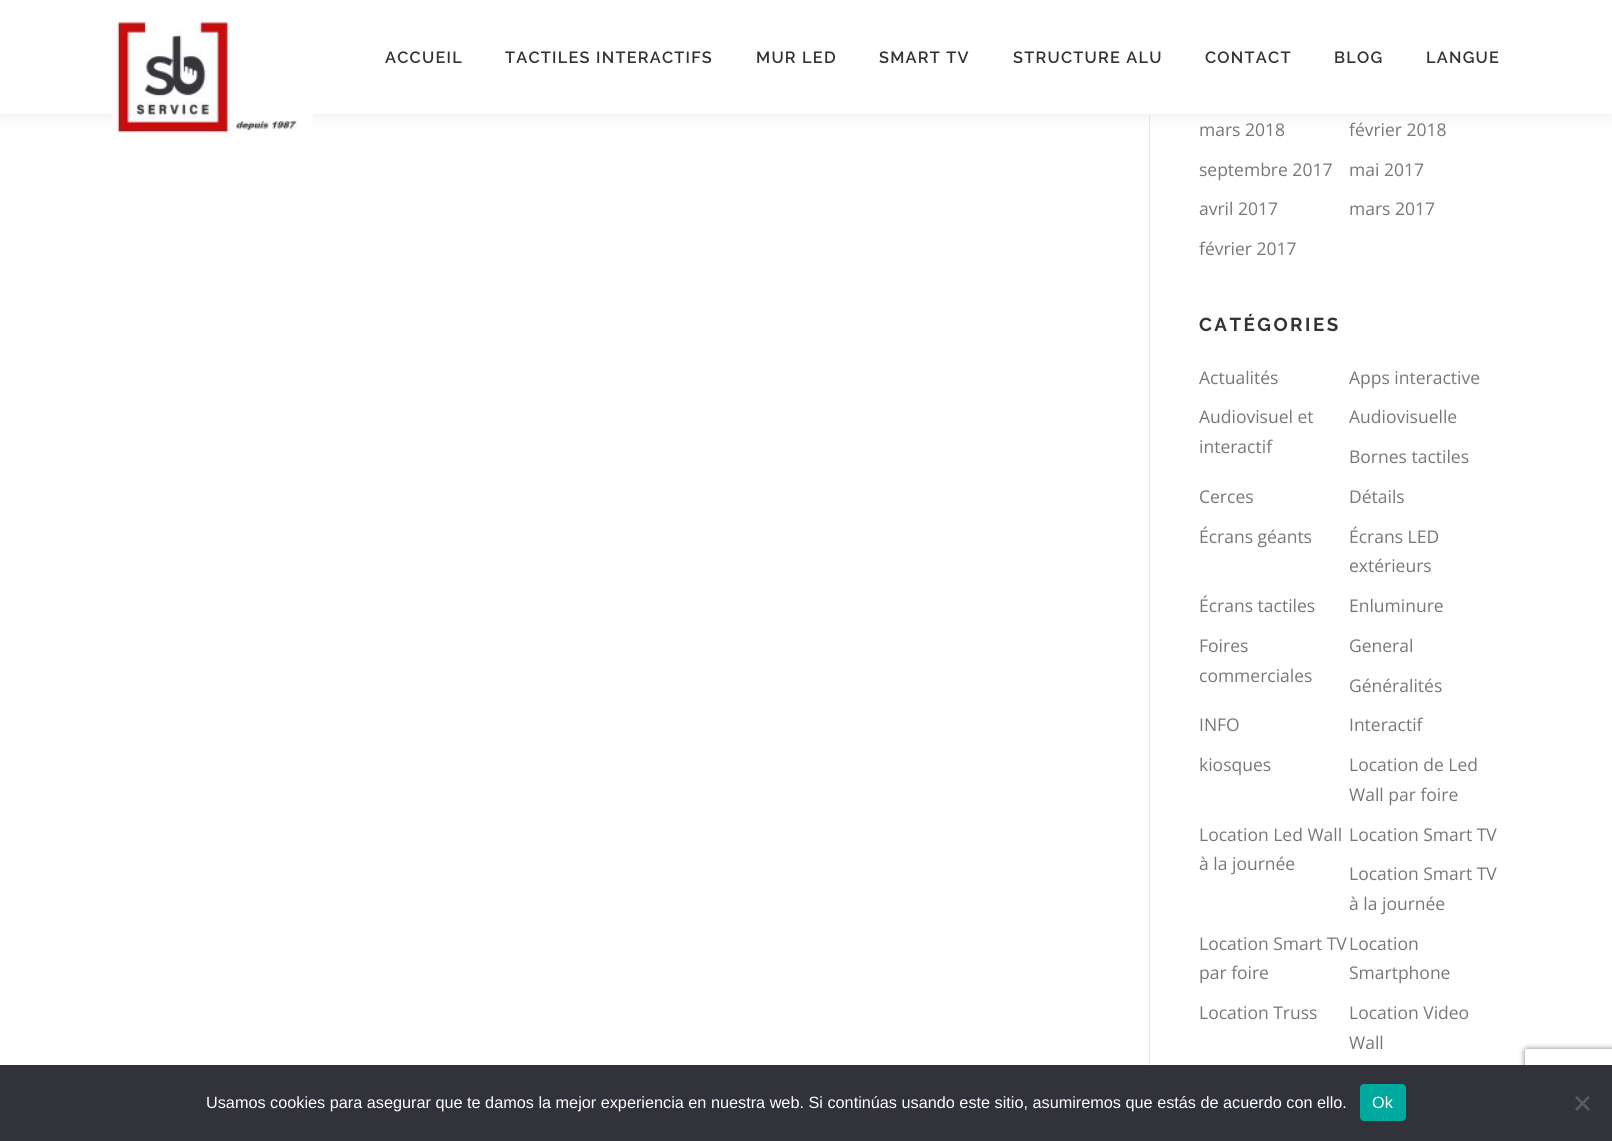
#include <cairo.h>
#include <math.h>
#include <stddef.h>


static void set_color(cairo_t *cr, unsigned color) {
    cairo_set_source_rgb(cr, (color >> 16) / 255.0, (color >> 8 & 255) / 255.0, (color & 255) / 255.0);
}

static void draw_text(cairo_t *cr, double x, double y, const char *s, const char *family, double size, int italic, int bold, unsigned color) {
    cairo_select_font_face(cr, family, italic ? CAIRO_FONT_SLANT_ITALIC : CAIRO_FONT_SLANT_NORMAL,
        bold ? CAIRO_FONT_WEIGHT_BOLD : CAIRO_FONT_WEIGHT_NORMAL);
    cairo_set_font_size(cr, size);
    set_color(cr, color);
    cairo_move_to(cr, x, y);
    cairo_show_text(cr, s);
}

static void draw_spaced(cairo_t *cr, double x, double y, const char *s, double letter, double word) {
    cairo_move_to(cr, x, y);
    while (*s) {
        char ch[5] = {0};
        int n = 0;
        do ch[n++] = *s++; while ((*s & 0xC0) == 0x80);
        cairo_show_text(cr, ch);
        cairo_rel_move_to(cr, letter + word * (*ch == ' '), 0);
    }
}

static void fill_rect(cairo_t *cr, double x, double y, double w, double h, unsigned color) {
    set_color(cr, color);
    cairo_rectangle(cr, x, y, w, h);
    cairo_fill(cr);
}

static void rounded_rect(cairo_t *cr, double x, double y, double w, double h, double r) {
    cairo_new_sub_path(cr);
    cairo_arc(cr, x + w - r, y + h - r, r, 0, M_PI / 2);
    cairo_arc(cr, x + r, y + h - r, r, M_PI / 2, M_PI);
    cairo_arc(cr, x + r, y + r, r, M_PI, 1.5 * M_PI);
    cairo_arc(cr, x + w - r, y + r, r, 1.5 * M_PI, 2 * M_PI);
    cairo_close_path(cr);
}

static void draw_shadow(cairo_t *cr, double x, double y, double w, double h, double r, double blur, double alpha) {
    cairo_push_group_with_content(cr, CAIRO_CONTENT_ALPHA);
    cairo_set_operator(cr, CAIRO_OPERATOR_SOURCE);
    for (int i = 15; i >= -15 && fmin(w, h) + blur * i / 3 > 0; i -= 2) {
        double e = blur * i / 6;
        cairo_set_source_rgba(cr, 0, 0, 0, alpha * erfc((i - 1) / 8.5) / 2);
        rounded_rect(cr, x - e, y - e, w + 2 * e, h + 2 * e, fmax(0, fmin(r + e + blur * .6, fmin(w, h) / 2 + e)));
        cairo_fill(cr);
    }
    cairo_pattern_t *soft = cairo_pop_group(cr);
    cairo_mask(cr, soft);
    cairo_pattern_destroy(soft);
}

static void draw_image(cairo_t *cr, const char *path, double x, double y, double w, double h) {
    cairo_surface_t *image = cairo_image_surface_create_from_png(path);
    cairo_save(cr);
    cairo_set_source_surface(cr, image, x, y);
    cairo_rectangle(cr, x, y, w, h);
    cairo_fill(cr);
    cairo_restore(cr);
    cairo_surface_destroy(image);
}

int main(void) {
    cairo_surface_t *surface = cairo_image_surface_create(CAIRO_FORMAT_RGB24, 1612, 1141);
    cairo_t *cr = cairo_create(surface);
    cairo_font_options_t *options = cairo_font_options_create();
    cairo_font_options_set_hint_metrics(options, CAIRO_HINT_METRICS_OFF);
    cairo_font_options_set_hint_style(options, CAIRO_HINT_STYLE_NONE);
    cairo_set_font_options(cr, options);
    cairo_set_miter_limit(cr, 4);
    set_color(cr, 0xFFFFFF);
    cairo_paint(cr);
    fill_rect(cr, 1149, 114, 1, 951, 0xE9E9E9);
    set_color(cr, 0x323232);
    draw_shadow(cr, 0, 6, 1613, 114, 0, 6, 0.06);
    fill_rect(cr, 0, 1, 1612, 113, 0xFFFFFF);
    draw_image(cr, "assets/img1.png", 112, 20, 201, 118);
    cairo_select_font_face(cr, "Raleway SemiBold", CAIRO_FONT_SLANT_NORMAL, CAIRO_FONT_WEIGHT_NORMAL);
    cairo_set_font_size(cr, 16.25);
    set_color(cr, 0x333333);
    draw_spaced(cr, 385, 63, "ACCUEIL", 1.25, 0);
    draw_spaced(cr, 505, 63, "TACTILES INTERACTIFS", 1.25, 0);
    draw_spaced(cr, 756, 63, "MUR LED", 1.25, 0);
    draw_spaced(cr, 879, 63, "SMART TV", 1.25, 0);
    draw_spaced(cr, 1013, 63, "STRUCTURE ALU", 1.25, 0);
    draw_spaced(cr, 1205, 63, "CONTACT", 1.25, 0);
    draw_spaced(cr, 1334, 63, "BLOG", 1.25, 0);
    draw_spaced(cr, 1426, 63, "LANGUE", 1.25, 0);
    draw_text(cr, 1199, 136, "mars 2018", "Open Sans", 17.5, 0, 0, 0x777777);
    draw_text(cr, 1349, 136, "février 2018", "Open Sans", 17.5, 0, 0, 0x777777);
    draw_text(cr, 1199, 176, "septembre 2017", "Open Sans", 17.5, 0, 0, 0x777777);
    draw_text(cr, 1349, 176, "mai 2017", "Open Sans", 17.5, 0, 0, 0x777777);
    draw_text(cr, 1199, 215, "avril 2017", "Open Sans", 17.5, 0, 0, 0x777777);
    draw_text(cr, 1349, 215, "mars 2017", "Open Sans", 17.5, 0, 0, 0x777777);
    draw_text(cr, 1199, 255, "février 2017", "Open Sans", 17.5, 0, 0, 0x777777);
    cairo_select_font_face(cr, "Raleway", CAIRO_FONT_SLANT_NORMAL, CAIRO_FONT_WEIGHT_BOLD);
    cairo_set_font_size(cr, 18.75);
    set_color(cr, 0x333333);
    draw_spaced(cr, 1199, 331, "CATÉGORIES", 2.5, 0);
    draw_text(cr, 1199, 384, "Actualités", "Open Sans", 17.5, 0, 0, 0x777777);
    draw_text(cr, 1349, 384, "Apps interactive", "Open Sans", 17.5, 0, 0, 0x777777);
    draw_text(cr, 1199, 423, "Audiovisuel et", "Open Sans", 17.5, 0, 0, 0x777777);
    draw_text(cr, 1199, 453, "interactif", "Open Sans", 17.5, 0, 0, 0x777777);
    draw_text(cr, 1349, 423, "Audiovisuelle", "Open Sans", 17.5, 0, 0, 0x777777);
    draw_text(cr, 1349, 463, "Bornes tactiles", "Open Sans", 17.5, 0, 0, 0x777777);
    draw_text(cr, 1199, 503, "Cerces", "Open Sans", 17.5, 0, 0, 0x777777);
    draw_text(cr, 1349, 503, "Détails", "Open Sans", 17.5, 0, 0, 0x777777);
    draw_text(cr, 1199, 543, "Écrans géants", "Open Sans", 17.5, 0, 0, 0x777777);
    draw_text(cr, 1349, 543, "Écrans LED", "Open Sans", 17.5, 0, 0, 0x777777);
    draw_text(cr, 1349, 572, "extérieurs", "Open Sans", 17.5, 0, 0, 0x777777);
    draw_text(cr, 1199, 612, "Écrans tactiles", "Open Sans", 17.5, 0, 0, 0x777777);
    draw_text(cr, 1349, 612, "Enluminure", "Open Sans", 17.5, 0, 0, 0x777777);
    draw_text(cr, 1199, 652, "Foires", "Open Sans", 17.5, 0, 0, 0x777777);
    draw_text(cr, 1199, 682, "commerciales", "Open Sans", 17.5, 0, 0, 0x777777);
    draw_text(cr, 1349, 652, "General", "Open Sans", 17.5, 0, 0, 0x777777);
    draw_text(cr, 1349, 692, "Généralités", "Open Sans", 17.5, 0, 0, 0x777777);
    draw_text(cr, 1199, 731, "INFO", "Open Sans", 17.5, 0, 0, 0x777777);
    draw_text(cr, 1349, 731, "Interactif", "Open Sans", 17.5, 0, 0, 0x777777);
    draw_text(cr, 1199, 771, "kiosques", "Open Sans", 17.5, 0, 0, 0x777777);
    draw_text(cr, 1349, 771, "Location de Led", "Open Sans", 17.5, 0, 0, 0x777777);
    draw_text(cr, 1349, 801, "Wall par foire", "Open Sans", 17.5, 0, 0, 0x777777);
    draw_text(cr, 1199, 841, "Location Led Wall", "Open Sans", 17.5, 0, 0, 0x777777);
    draw_text(cr, 1199, 870, "à la journée", "Open Sans", 17.5, 0, 0, 0x777777);
    draw_text(cr, 1349, 841, "Location Smart TV", "Open Sans", 17.5, 0, 0, 0x777777);
    draw_text(cr, 1349, 880, "Location Smart TV", "Open Sans", 17.5, 0, 0, 0x777777);
    draw_text(cr, 1349, 910, "à la journée", "Open Sans", 17.5, 0, 0, 0x777777);
    draw_text(cr, 1199, 950, "Location Smart TV", "Open Sans", 17.5, 0, 0, 0x777777);
    draw_text(cr, 1199, 979, "par foire", "Open Sans", 17.5, 0, 0, 0x777777);
    draw_text(cr, 1349, 950, "Location", "Open Sans", 17.5, 0, 0, 0x777777);
    draw_text(cr, 1349, 979, "Smartphone", "Open Sans", 17.5, 0, 0, 0x777777);
    draw_text(cr, 1199, 1019, "Location Truss", "Open Sans", 17.5, 0, 0, 0x777777);
    draw_text(cr, 1349, 1019, "Location Video", "Open Sans", 17.5, 0, 0, 0x777777);
    draw_text(cr, 1349, 1049, "Wall", "Open Sans", 17.5, 0, 0, 0x777777);
    cairo_save(cr);
    cairo_set_fill_rule(cr, CAIRO_FILL_RULE_EVEN_ODD);
    cairo_new_path(cr);
    cairo_move_to(cr, 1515, 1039);
    cairo_line_to(cr, 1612, 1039);
    cairo_line_to(cr, 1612, 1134);
    cairo_line_to(cr, 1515, 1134);
    cairo_close_path(cr);
    cairo_move_to(cr, 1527.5, 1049);
    cairo_line_to(cr, 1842.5, 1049);
    cairo_curve_to(cr, 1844, 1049, 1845, 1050, 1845, 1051.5);
    cairo_line_to(cr, 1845, 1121.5);
    cairo_curve_to(cr, 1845, 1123, 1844, 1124, 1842.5, 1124);
    cairo_line_to(cr, 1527.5, 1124);
    cairo_curve_to(cr, 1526, 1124, 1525, 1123, 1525, 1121.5);
    cairo_line_to(cr, 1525, 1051.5);
    cairo_curve_to(cr, 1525, 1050, 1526, 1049, 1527.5, 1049);
    cairo_close_path(cr);
    cairo_clip(cr);
    set_color(cr, 0x808080);
    draw_shadow(cr, 1525, 1049, 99, 75, 2.5, 3, 1);
    cairo_restore(cr);
    fill_rect(cr, 0, 1065, 1612, 76, 0x32323A);
    draw_text(cr, 206, 1108, "Usamos cookies para asegurar que te damos la mejor experiencia en nuestra web. Si continúas usando este sitio, asumiremos que estás de acuerdo con ello.", "Liberation Sans", 16.25, 0, 0, 0xFFFFFF);
    set_color(cr, 0x00A99D);
    rounded_rect(cr, 1360, 1084, 46, 37, 4);
    cairo_fill(cr);
    draw_text(cr, 1372, 1108, "Ok", "Liberation Sans", 16.25, 0, 0, 0xFFFFFF);
    set_color(cr, 0x59595D);
    cairo_new_path(cr);
    cairo_move_to(cr, 1588, 1096);
    cairo_line_to(cr, 1590, 1097.5);
    cairo_line_to(cr, 1577, 1111);
    cairo_line_to(cr, 1575, 1109);
    cairo_close_path(cr);
    cairo_fill(cr);
    cairo_new_path(cr);
    cairo_move_to(cr, 1575, 1097.5);
    cairo_line_to(cr, 1577, 1096);
    cairo_line_to(cr, 1590, 1109);
    cairo_line_to(cr, 1588, 1111);
    cairo_close_path(cr);
    cairo_fill(cr);
    cairo_surface_write_to_png(surface, "output.png");
    cairo_font_options_destroy(options);
    cairo_destroy(cr);
    cairo_surface_destroy(surface);
    return 0;
}
